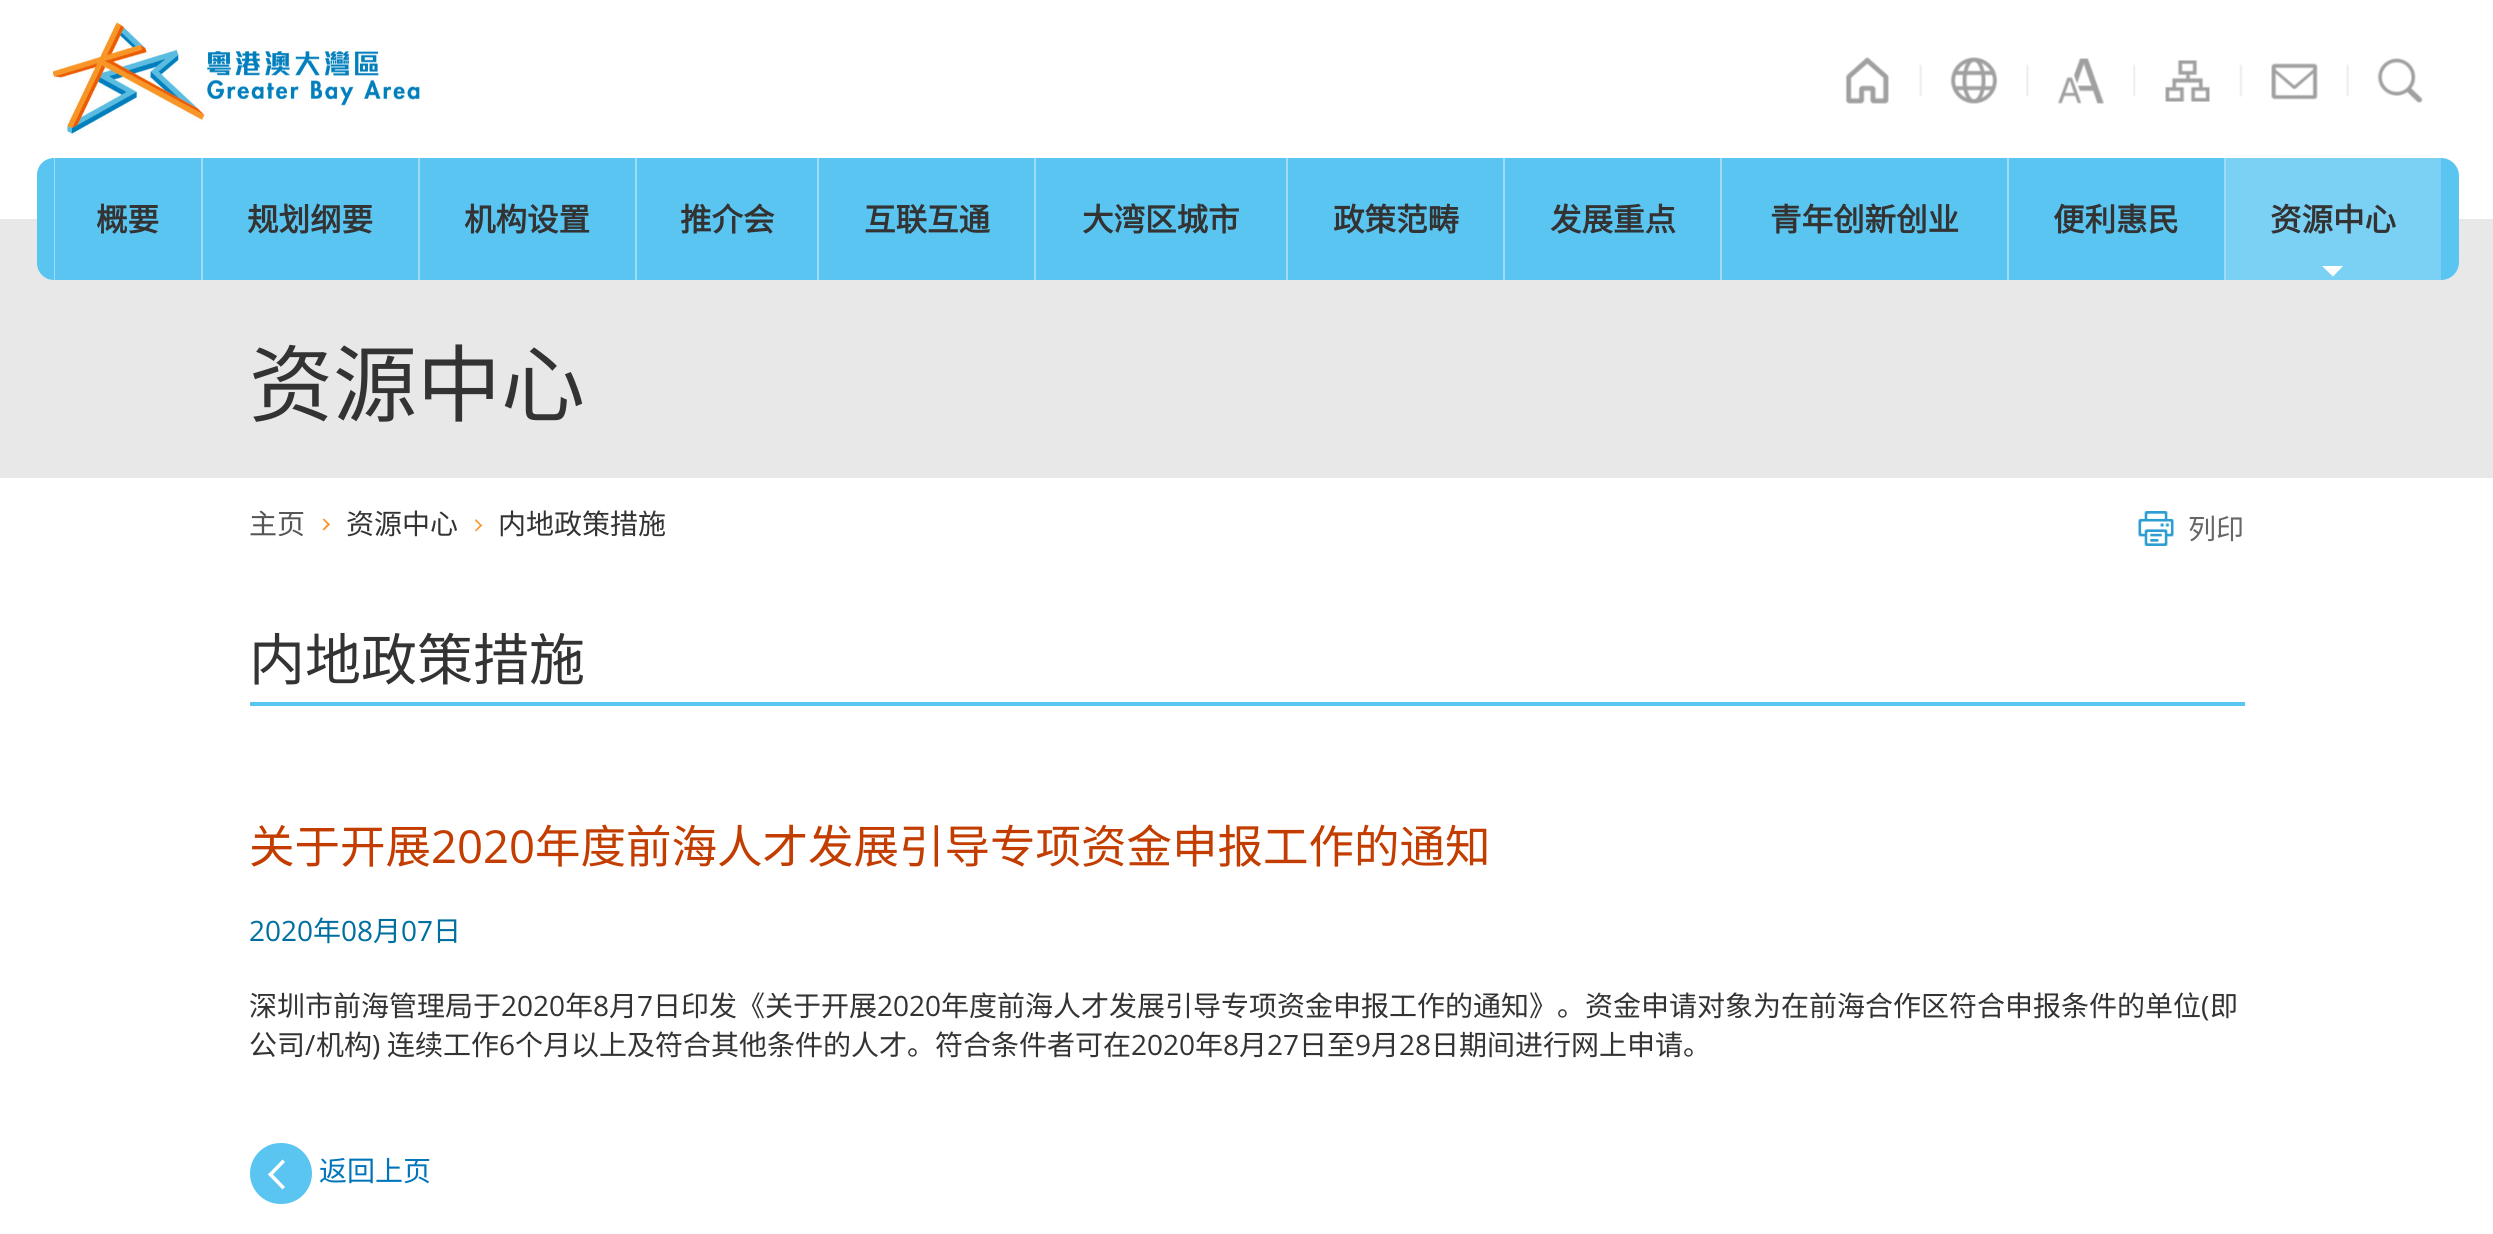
#include <cairo.h>
#include <math.h>
#include <stddef.h>


static void set_color(cairo_t *cr, unsigned color) {
    cairo_set_source_rgb(cr, (color >> 16) / 255.0, (color >> 8 & 255) / 255.0, (color & 255) / 255.0);
}

static void draw_text(cairo_t *cr, double x, double y, const char *s, const char *family, double size, int italic, int bold, unsigned color) {
    cairo_select_font_face(cr, family, italic ? CAIRO_FONT_SLANT_ITALIC : CAIRO_FONT_SLANT_NORMAL,
        bold ? CAIRO_FONT_WEIGHT_BOLD : CAIRO_FONT_WEIGHT_NORMAL);
    cairo_set_font_size(cr, size);
    set_color(cr, color);
    cairo_move_to(cr, x, y);
    cairo_show_text(cr, s);
}

static void fill_rect(cairo_t *cr, double x, double y, double w, double h, unsigned color) {
    set_color(cr, color);
    cairo_rectangle(cr, x, y, w, h);
    cairo_fill(cr);
}

static void rounded_rect(cairo_t *cr, double x, double y, double w, double h, double r) {
    cairo_new_sub_path(cr);
    cairo_arc(cr, x + w - r, y + h - r, r, 0, M_PI / 2);
    cairo_arc(cr, x + r, y + h - r, r, M_PI / 2, M_PI);
    cairo_arc(cr, x + r, y + r, r, M_PI, 1.5 * M_PI);
    cairo_arc(cr, x + w - r, y + r, r, 1.5 * M_PI, 2 * M_PI);
    cairo_close_path(cr);
}

static void draw_image(cairo_t *cr, const char *path, double x, double y, double w, double h) {
    cairo_surface_t *image = cairo_image_surface_create_from_png(path);
    cairo_save(cr);
    cairo_set_source_surface(cr, image, x, y);
    cairo_rectangle(cr, x, y, w, h);
    cairo_fill(cr);
    cairo_restore(cr);
    cairo_surface_destroy(image);
}

int main(void) {
    cairo_surface_t *surface = cairo_image_surface_create(CAIRO_FORMAT_RGB24, 2493, 1234);
    cairo_t *cr = cairo_create(surface);
    cairo_font_options_t *options = cairo_font_options_create();
    cairo_font_options_set_hint_metrics(options, CAIRO_HINT_METRICS_OFF);
    cairo_font_options_set_hint_style(options, CAIRO_HINT_STYLE_NONE);
    cairo_set_font_options(cr, options);
    cairo_set_miter_limit(cr, 4);
    set_color(cr, 0xFFFFFF);
    cairo_paint(cr);
    draw_image(cr, "assets/img1.png", 53, 21, 367, 116);
    draw_image(cr, "assets/img2.png", 1845, 57, 44, 47);
    draw_image(cr, "assets/img3.png", 1919, 64, 3, 33);
    draw_image(cr, "assets/img4.png", 1950, 57, 48, 47);
    draw_image(cr, "assets/img5.png", 2026, 64, 3, 33);
    draw_image(cr, "assets/img6.png", 2057, 58, 47, 46);
    draw_image(cr, "assets/img7.png", 2133, 64, 3, 33);
    draw_image(cr, "assets/img8.png", 2165, 60, 45, 42);
    draw_image(cr, "assets/img9.png", 2239, 64, 4, 33);
    draw_image(cr, "assets/img10.png", 2271, 63, 47, 37);
    draw_image(cr, "assets/img3.png", 2346, 64, 3, 33);
    draw_image(cr, "assets/img11.png", 2377, 58, 46, 45);
    fill_rect(cr, 0, 219, 2493, 259, 0xE8E8E8);
    fill_rect(cr, 55, 158, 146, 122, 0x5AC5F1);
    fill_rect(cr, 53, 158, 2, 122, 0x9CDCF7);
    set_color(cr, 0x5AC5F1);
    cairo_new_path(cr);
    cairo_move_to(cr, 54, 158);
    cairo_line_to(cr, 54, 280);
    cairo_curve_to(cr, 44.5, 280, 37, 272.5, 37, 263);
    cairo_line_to(cr, 37, 175);
    cairo_curve_to(cr, 37, 165.5, 44.5, 158, 54, 158);
    cairo_close_path(cr);
    cairo_fill(cr);
    draw_text(cr, 96, 231, "概要", "Noto Sans CJK SC", 31.5, 0, 1, 0x333333);
    fill_rect(cr, 203, 158, 215, 122, 0x5AC5F1);
    fill_rect(cr, 201, 158, 2, 122, 0x9CDCF7);
    draw_text(cr, 247, 231, "规划纲要", "Noto Sans CJK SC", 31.5, 0, 1, 0x333333);
    fill_rect(cr, 420, 158, 215, 122, 0x5AC5F1);
    fill_rect(cr, 418, 158, 2, 122, 0x9CDCF7);
    draw_text(cr, 464, 231, "机构设置", "Noto Sans CJK SC", 31.5, 0, 1, 0x333333);
    fill_rect(cr, 637, 158, 180, 122, 0x5AC5F1);
    fill_rect(cr, 635, 158, 2, 122, 0x9CDCF7);
    draw_text(cr, 680, 231, "推介会", "Noto Sans CJK SC", 31.5, 0, 1, 0x333333);
    fill_rect(cr, 819, 158, 215, 122, 0x5AC5F1);
    fill_rect(cr, 817, 158, 2, 122, 0x9CDCF7);
    draw_text(cr, 864, 231, "互联互通", "Noto Sans CJK SC", 31.5, 0, 1, 0x333333);
    fill_rect(cr, 1036, 158, 250, 122, 0x5AC5F1);
    fill_rect(cr, 1034, 158, 2, 122, 0x9CDCF7);
    draw_text(cr, 1082, 231, "大湾区城市", "Noto Sans CJK SC", 31.5, 0, 1, 0x333333);
    fill_rect(cr, 1288, 158, 215, 122, 0x5AC5F1);
    fill_rect(cr, 1286, 158, 2, 122, 0x9CDCF7);
    draw_text(cr, 1333, 231, "政策范畴", "Noto Sans CJK SC", 31.5, 0, 1, 0x333333);
    fill_rect(cr, 1505, 158, 215, 122, 0x5AC5F1);
    fill_rect(cr, 1503, 158, 2, 122, 0x9CDCF7);
    draw_text(cr, 1550, 231, "发展重点", "Noto Sans CJK SC", 31.5, 0, 1, 0x333333);
    fill_rect(cr, 1722, 158, 285, 122, 0x5AC5F1);
    fill_rect(cr, 1720, 158, 2, 122, 0x9CDCF7);
    draw_text(cr, 1770, 231, "青年创新创业", "Noto Sans CJK SC", 31.5, 0, 1, 0x333333);
    fill_rect(cr, 2009, 158, 215, 122, 0x5AC5F1);
    fill_rect(cr, 2007, 158, 2, 122, 0x9CDCF7);
    draw_text(cr, 2053, 231, "便利惠民", "Noto Sans CJK SC", 31.5, 0, 1, 0x333333);
    fill_rect(cr, 2224, 158, 2, 122, 0x9CDCF7);
    fill_rect(cr, 2226, 158, 215, 122, 0x7BD1F4);
    draw_text(cr, 2270, 231, "资源中心", "Noto Sans CJK SC", 31.5, 0, 1, 0x333333);
    set_color(cr, 0xFFFFFF);
    cairo_new_path(cr);
    cairo_move_to(cr, 2322, 266);
    cairo_line_to(cr, 2343, 266);
    cairo_line_to(cr, 2333, 276.5);
    cairo_close_path(cr);
    cairo_fill(cr);
    set_color(cr, 0x5AC5F1);
    cairo_new_path(cr);
    cairo_move_to(cr, 2441, 158);
    cairo_curve_to(cr, 2451, 158, 2459, 166, 2459, 176);
    cairo_line_to(cr, 2459, 262);
    cairo_curve_to(cr, 2459, 272, 2451, 280, 2441, 280);
    cairo_close_path(cr);
    cairo_fill(cr);
    draw_text(cr, 249, 415, "资源中心", "Noto Sans CJK SC", 84, 0, 0, 0x333333);
    draw_text(cr, 249, 534, "主页", "Noto Sans CJK SC", 28, 0, 0, 0x555555);
    set_color(cr, 0xF89727);
    cairo_new_path(cr);
    cairo_move_to(cr, 324, 518.5);
    cairo_line_to(cr, 330, 524.5);
    cairo_line_to(cr, 328.5, 525.5);
    cairo_line_to(cr, 322.5, 519.5);
    cairo_close_path(cr);
    cairo_fill(cr);
    cairo_new_path(cr);
    cairo_move_to(cr, 328.5, 523);
    cairo_line_to(cr, 330, 524.5);
    cairo_line_to(cr, 324, 530.5);
    cairo_line_to(cr, 322.5, 529.5);
    cairo_close_path(cr);
    cairo_fill(cr);
    draw_text(cr, 346, 534, "资源中心", "Noto Sans CJK SC", 28, 0, 0, 0x333333);
    set_color(cr, 0xF89727);
    cairo_new_path(cr);
    cairo_move_to(cr, 476, 519);
    cairo_line_to(cr, 482, 525.5);
    cairo_line_to(cr, 481, 526.5);
    cairo_line_to(cr, 475, 520.5);
    cairo_close_path(cr);
    cairo_fill(cr);
    cairo_new_path(cr);
    cairo_move_to(cr, 481, 524);
    cairo_line_to(cr, 482, 525.5);
    cairo_line_to(cr, 476, 531.5);
    cairo_line_to(cr, 475, 530.5);
    cairo_close_path(cr);
    cairo_fill(cr);
    draw_text(cr, 498, 534, "内地政策措施", "Noto Sans CJK SC", 28, 0, 0, 0x333333);
    draw_image(cr, "assets/img12.png", 2138, 511, 36, 35);
    draw_text(cr, 2188, 539, "列印", "Noto Sans CJK SC", 28, 0, 0, 0x666666);
    fill_rect(cr, 250, 702, 1995, 4, 0x5AC5F1);
    draw_text(cr, 249, 680, "内地政策措施", "Noto Sans CJK SC", 56, 0, 0, 0x333333);
    draw_text(cr, 249, 863, "关于开展", "Noto Sans CJK SC", 45.5, 0, 0, 0xC33D00);
    draw_text(cr, 431, 863, "2020", "Open Sans", 45.5, 0, 0, 0xC33D00);
    draw_text(cr, 535, 863, "年度前海人才发展引导专项资金申报工作的通知", "Noto Sans CJK SC", 45.5, 0, 0, 0xC33D00);
    draw_text(cr, 249, 941, "2020", "Open Sans", 28, 0, 0, 0x006FA0);
    draw_text(cr, 313, 941, "年", "Noto Sans CJK SC", 28, 0, 0, 0x006FA0);
    draw_text(cr, 341, 941, "08", "Open Sans", 28, 0, 0, 0x006FA0);
    draw_text(cr, 373, 941, "月", "Noto Sans CJK SC", 28, 0, 0, 0x006FA0);
    draw_text(cr, 401, 941, "07", "Open Sans", 28, 0, 0, 0x006FA0);
    draw_text(cr, 433, 941, "日", "Noto Sans CJK SC", 28, 0, 0, 0x006FA0);
    draw_text(cr, 249, 1016, "深圳市前海管理局于", "Noto Sans CJK SC", 28, 0, 0, 0x333333);
    draw_text(cr, 501, 1016, "2020", "Open Sans", 28, 0, 0, 0x333333);
    draw_text(cr, 565, 1016, "年", "Noto Sans CJK SC", 28, 0, 0, 0x333333);
    draw_text(cr, 593, 1016, "8", "Open Sans", 28, 0, 0, 0x333333);
    draw_text(cr, 609, 1016, "月", "Noto Sans CJK SC", 28, 0, 0, 0x333333);
    draw_text(cr, 637, 1016, "7", "Open Sans", 28, 0, 0, 0x333333);
    draw_text(cr, 653, 1016, "日印发《关于开展", "Noto Sans CJK SC", 28, 0, 0, 0x333333);
    draw_text(cr, 877, 1016, "2020", "Open Sans", 28, 0, 0, 0x333333);
    draw_text(cr, 941, 1016, "年度前海人才发展引导专项资金申报工作的通知》。资金申请对象为在前海合作区符合申报条件的单位", "Noto Sans CJK SC", 28, 0, 0, 0x333333);
    draw_text(cr, 2201, 1016, "(", "Open Sans", 28, 0, 0, 0x333333);
    draw_text(cr, 2210, 1016, "即", "Noto Sans CJK SC", 28, 0, 0, 0x333333);
    draw_text(cr, 249, 1055, "公司", "Noto Sans CJK SC", 28, 0, 0, 0x333333);
    draw_text(cr, 305, 1055, "/", "Open Sans", 28, 0, 0, 0x333333);
    draw_text(cr, 316, 1055, "机构", "Noto Sans CJK SC", 28, 0, 0, 0x333333);
    draw_text(cr, 372, 1055, ")", "Open Sans", 28, 0, 0, 0x333333);
    draw_text(cr, 387, 1055, "连续工作", "Noto Sans CJK SC", 28, 0, 0, 0x333333);
    draw_text(cr, 499, 1055, "6", "Open Sans", 28, 0, 0, 0x333333);
    draw_text(cr, 515, 1055, "个月以上及符合其他条件的人才。符合条件者可在", "Noto Sans CJK SC", 28, 0, 0, 0x333333);
    draw_text(cr, 1131, 1055, "2020", "Open Sans", 28, 0, 0, 0x333333);
    draw_text(cr, 1195, 1055, "年", "Noto Sans CJK SC", 28, 0, 0, 0x333333);
    draw_text(cr, 1223, 1055, "8", "Open Sans", 28, 0, 0, 0x333333);
    draw_text(cr, 1239, 1055, "月", "Noto Sans CJK SC", 28, 0, 0, 0x333333);
    draw_text(cr, 1267, 1055, "27", "Open Sans", 28, 0, 0, 0x333333);
    draw_text(cr, 1299, 1055, "日至", "Noto Sans CJK SC", 28, 0, 0, 0x333333);
    draw_text(cr, 1355, 1055, "9", "Open Sans", 28, 0, 0, 0x333333);
    draw_text(cr, 1371, 1055, "月", "Noto Sans CJK SC", 28, 0, 0, 0x333333);
    draw_text(cr, 1399, 1055, "28", "Open Sans", 28, 0, 0, 0x333333);
    draw_text(cr, 1431, 1055, "日期间进行网上申请。", "Noto Sans CJK SC", 28, 0, 0, 0x333333);
    set_color(cr, 0x5AC5F1);
    rounded_rect(cr, 250, 1143, 62, 61, 30.5);
    cairo_fill(cr);
    draw_text(cr, 319, 1181, "返回上页", "Noto Sans CJK SC", 28, 0, 0, 0x0075B9);
    set_color(cr, 0xFFFFFF);
    cairo_new_path(cr);
    cairo_move_to(cr, 268, 1174.5);
    cairo_line_to(cr, 282.5, 1159.5);
    cairo_line_to(cr, 285, 1162);
    cairo_line_to(cr, 270.5, 1177);
    cairo_close_path(cr);
    cairo_fill(cr);
    cairo_new_path(cr);
    cairo_move_to(cr, 268, 1174.5);
    cairo_line_to(cr, 270.5, 1172);
    cairo_line_to(cr, 285, 1187);
    cairo_line_to(cr, 282.5, 1189.5);
    cairo_close_path(cr);
    cairo_fill(cr);
    cairo_surface_write_to_png(surface, "output.png");
    cairo_font_options_destroy(options);
    cairo_destroy(cr);
    cairo_surface_destroy(surface);
    return 0;
}
